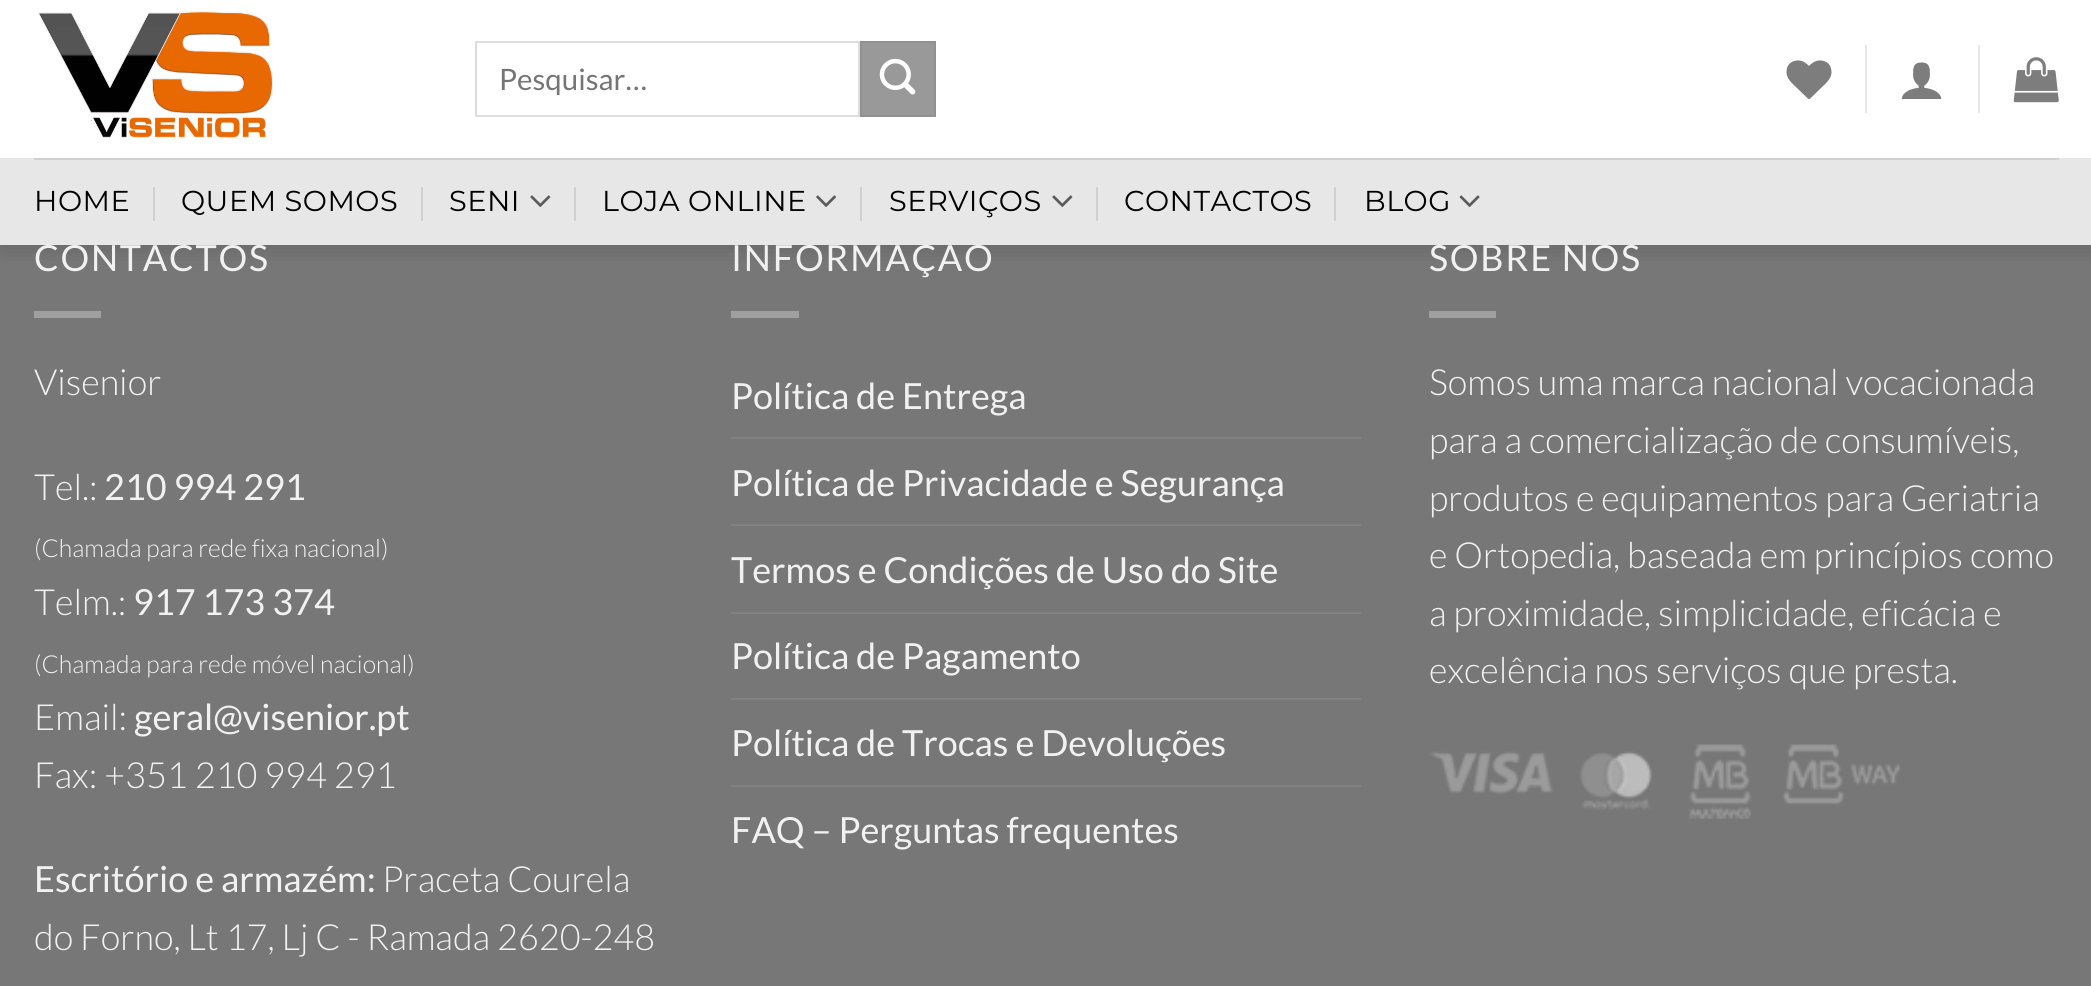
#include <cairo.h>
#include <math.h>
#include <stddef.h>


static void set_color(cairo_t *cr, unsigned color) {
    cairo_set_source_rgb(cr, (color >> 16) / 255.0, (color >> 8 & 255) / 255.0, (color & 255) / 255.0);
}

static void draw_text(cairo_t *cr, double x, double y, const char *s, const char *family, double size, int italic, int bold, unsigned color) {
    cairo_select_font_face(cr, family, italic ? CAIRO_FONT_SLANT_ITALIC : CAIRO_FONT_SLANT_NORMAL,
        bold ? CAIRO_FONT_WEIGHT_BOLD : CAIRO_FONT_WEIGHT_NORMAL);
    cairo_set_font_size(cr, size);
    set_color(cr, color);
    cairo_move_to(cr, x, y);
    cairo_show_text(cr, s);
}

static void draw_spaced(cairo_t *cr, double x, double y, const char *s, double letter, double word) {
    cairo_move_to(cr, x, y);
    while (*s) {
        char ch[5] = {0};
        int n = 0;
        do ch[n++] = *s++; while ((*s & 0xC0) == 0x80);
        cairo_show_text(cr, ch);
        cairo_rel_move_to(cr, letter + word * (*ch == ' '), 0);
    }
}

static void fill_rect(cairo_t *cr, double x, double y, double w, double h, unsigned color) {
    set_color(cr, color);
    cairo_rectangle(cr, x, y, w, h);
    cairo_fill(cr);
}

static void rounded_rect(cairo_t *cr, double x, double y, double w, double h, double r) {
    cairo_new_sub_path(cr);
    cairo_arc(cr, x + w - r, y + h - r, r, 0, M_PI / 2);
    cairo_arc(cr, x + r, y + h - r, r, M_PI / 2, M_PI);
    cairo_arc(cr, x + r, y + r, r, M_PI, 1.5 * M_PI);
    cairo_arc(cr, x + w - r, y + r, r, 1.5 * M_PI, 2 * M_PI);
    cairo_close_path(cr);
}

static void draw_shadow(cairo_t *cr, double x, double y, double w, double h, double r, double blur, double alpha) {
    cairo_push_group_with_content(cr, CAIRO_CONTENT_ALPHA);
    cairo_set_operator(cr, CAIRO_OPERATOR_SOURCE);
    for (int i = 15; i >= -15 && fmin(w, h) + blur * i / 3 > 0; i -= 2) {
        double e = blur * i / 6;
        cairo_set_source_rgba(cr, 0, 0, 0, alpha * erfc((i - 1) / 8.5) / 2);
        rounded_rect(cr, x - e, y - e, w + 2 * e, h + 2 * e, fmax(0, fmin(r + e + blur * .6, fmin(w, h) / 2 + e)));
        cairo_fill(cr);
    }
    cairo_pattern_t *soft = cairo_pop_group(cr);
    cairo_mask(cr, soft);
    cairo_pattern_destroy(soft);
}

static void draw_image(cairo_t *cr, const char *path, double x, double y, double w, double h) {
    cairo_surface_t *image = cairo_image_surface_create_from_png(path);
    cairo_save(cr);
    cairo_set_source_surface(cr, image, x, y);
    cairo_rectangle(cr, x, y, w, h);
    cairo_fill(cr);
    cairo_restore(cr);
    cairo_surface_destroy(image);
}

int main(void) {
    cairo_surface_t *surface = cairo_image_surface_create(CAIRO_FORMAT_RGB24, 2091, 986);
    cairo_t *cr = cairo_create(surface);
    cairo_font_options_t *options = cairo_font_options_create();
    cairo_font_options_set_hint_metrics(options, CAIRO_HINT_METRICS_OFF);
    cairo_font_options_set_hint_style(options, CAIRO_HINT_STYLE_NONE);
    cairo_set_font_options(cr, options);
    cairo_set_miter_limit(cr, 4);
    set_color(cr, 0x777777);
    cairo_paint(cr);
    set_color(cr, 0x000000);
    draw_shadow(cr, 2, 2, 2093, 246, 0, 11, 0.15);
    fill_rect(cr, 0, 0, 2091, 158, 0xFFFFFF);
    draw_image(cr, "assets/img1.png", 38, 11, 235, 128);
    cairo_rectangle(cr, 476, 42, 383, 74);
    set_color(cr, 0xDDDDDD);
    cairo_stroke(cr);
    draw_text(cr, 499, 90, "Pesquisar…", "Lato", 29.5, 0, 0, 0x757575);
    set_color(cr, 0x999999);
    cairo_rectangle(cr, 861, 42, 74, 74);
    cairo_fill_preserve(cr);
    set_color(cr, 0x919191);
    cairo_stroke(cr);
    draw_image(cr, "assets/img2.png", 879, 58, 37, 37);
    draw_image(cr, "assets/img3.png", 1786, 60, 46, 39);
    fill_rect(cr, 1865, 45, 2, 68, 0xE6E6E6);
    draw_image(cr, "assets/img4.png", 1901, 62, 41, 37);
    fill_rect(cr, 1978, 45, 2, 68, 0xE6E6E6);
    draw_image(cr, "assets/img5.png", 2013, 57, 46, 46);
    cairo_set_font_size(cr, 36);
    set_color(cr, 0xF1F1F1);
    draw_spaced(cr, 34, 271, "CONTACTOS", 1.75, 0);
    draw_spaced(cr, 731, 271, "INFORMAÇÃO", 1.75, 0);
    draw_spaced(cr, 1429, 271, "SOBRE NÓS", 1.75, 0);
    fill_rect(cr, 0, 158, 2091, 87, 0xE8E7E7);
    fill_rect(cr, 34, 158, 2025, 2, 0xD1D0D0);
    cairo_select_font_face(cr, "Montserrat Thin", CAIRO_FONT_SLANT_NORMAL, CAIRO_FONT_WEIGHT_NORMAL);
    cairo_set_font_size(cr, 28.75);
    set_color(cr, 0x000000);
    draw_spaced(cr, 34, 211, "HOME", 0.5, 0);
    fill_rect(cr, 153, 187, 2, 34, 0xD1D0D0);
    set_color(cr, 0x000000);
    draw_spaced(cr, 181, 211, "QUEM SOMOS", 0.5, 0);
    fill_rect(cr, 421, 187, 2, 34, 0xD1D0D0);
    set_color(cr, 0x000000);
    draw_spaced(cr, 449, 211, "SENI", 0.5, 0);
    draw_image(cr, "assets/img6.png", 530, 195, 21, 12);
    fill_rect(cr, 574, 187, 2, 34, 0xD1D0D0);
    set_color(cr, 0x000000);
    draw_spaced(cr, 602, 211, "LOJA ONLINE", 0.5, 0);
    draw_image(cr, "assets/img7.png", 816, 195, 20, 12);
    fill_rect(cr, 860, 187, 2, 34, 0xD1D0D0);
    set_color(cr, 0x000000);
    draw_spaced(cr, 889, 211, "SERVIÇOS", 0.5, 0);
    draw_image(cr, "assets/img6.png", 1052, 195, 21, 12);
    fill_rect(cr, 1096, 187, 2, 34, 0xD1D0D0);
    set_color(cr, 0x000000);
    draw_spaced(cr, 1124, 211, "CONTACTOS", 0.5, 0);
    fill_rect(cr, 1334, 187, 2, 34, 0xD1D0D0);
    set_color(cr, 0x000000);
    draw_spaced(cr, 1364, 211, "BLOG", 0.5, 0);
    draw_image(cr, "assets/img8.png", 1459, 195, 21, 12);
    fill_rect(cr, 34, 311, 67, 7, 0xA0A0A0);
    draw_text(cr, 34, 395, "Visenior", "Lato Light", 36, 0, 0, 0xF1F1F1);
    draw_text(cr, 34, 500, "Tel.:", "Lato Light", 36, 0, 0, 0xF1F1F1);
    draw_text(cr, 104, 500, "210 994 291", "Lato", 36, 0, 0, 0xF1F1F1);
    draw_text(cr, 34, 557, "(Chamada para rede fixa nacional)", "Lato Light", 24.75, 0, 0, 0xF1F1F1);
    draw_text(cr, 34, 615, "Telm.:", "Lato Light", 36, 0, 0, 0xF1F1F1);
    draw_text(cr, 133, 615, "917 173 374", "Lato", 36, 0, 0, 0xF1F1F1);
    draw_text(cr, 34, 673, "(Chamada para rede móvel nacional)", "Lato Light", 24.75, 0, 0, 0xF1F1F1);
    draw_text(cr, 34, 730, "Email:", "Lato Light", 36, 0, 0, 0xF1F1F1);
    draw_text(cr, 134, 730, "geral@visenior.pt", "Lato", 36, 0, 0, 0xF1F1F1);
    draw_text(cr, 34, 788, "Fax: +351 210 994 291", "Lato Light", 36, 0, 0, 0xF1F1F1);
    draw_text(cr, 34, 892, "Escritório e armazém:", "Lato", 36, 0, 0, 0xF1F1F1);
    draw_text(cr, 382, 892, "Praceta Courela", "Lato Light", 36, 0, 0, 0xF1F1F1);
    draw_text(cr, 34, 950, "do Forno, Lt 17, Lj C - Ramada 2620-248", "Lato Light", 36, 0, 0, 0xF1F1F1);
    fill_rect(cr, 731, 311, 68, 7, 0xA0A0A0);
    draw_text(cr, 731, 409, "Política de Entrega", "Lato", 36, 0, 0, 0xF1F1F1);
    fill_rect(cr, 731, 437, 630, 2, 0x828282);
    draw_text(cr, 731, 496, "Política de Privacidade e Segurança", "Lato", 36, 0, 0, 0xF1F1F1);
    fill_rect(cr, 731, 524, 630, 2, 0x828282);
    draw_text(cr, 731, 583, "Termos e Condições de Uso do Site", "Lato", 36, 0, 0, 0xF1F1F1);
    fill_rect(cr, 731, 612, 630, 2, 0x828282);
    draw_text(cr, 731, 669, "Política de Pagamento", "Lato", 36, 0, 0, 0xF1F1F1);
    fill_rect(cr, 731, 698, 630, 2, 0x828282);
    draw_text(cr, 731, 756, "Política de Trocas e Devoluções", "Lato", 36, 0, 0, 0xF1F1F1);
    fill_rect(cr, 731, 785, 630, 2, 0x828282);
    draw_text(cr, 731, 843, "FAQ – Perguntas frequentes", "Lato", 36, 0, 0, 0xF1F1F1);
    fill_rect(cr, 1429, 311, 67, 7, 0xA0A0A0);
    draw_text(cr, 1429, 395, "Somos uma marca nacional vocacionada", "Lato Light", 36, 0, 0, 0xF1F1F1);
    draw_text(cr, 1429, 453, "para a comercialização de consumíveis,", "Lato Light", 36, 0, 0, 0xF1F1F1);
    draw_text(cr, 1429, 511, "produtos e equipamentos para Geriatria", "Lato Light", 36, 0, 0, 0xF1F1F1);
    draw_text(cr, 1429, 568, "e Ortopedia, baseada em princípios como", "Lato Light", 36, 0, 0, 0xF1F1F1);
    draw_text(cr, 1429, 626, "a proximidade, simplicidade, eficácia e", "Lato Light", 36, 0, 0, 0xF1F1F1);
    draw_text(cr, 1429, 683, "excelência nos serviços que presta.", "Lato Light", 36, 0, 0, 0xF1F1F1);
    draw_image(cr, "assets/img9.png", 1429, 744, 472, 75);
    cairo_surface_write_to_png(surface, "output.png");
    cairo_font_options_destroy(options);
    cairo_destroy(cr);
    cairo_surface_destroy(surface);
    return 0;
}
